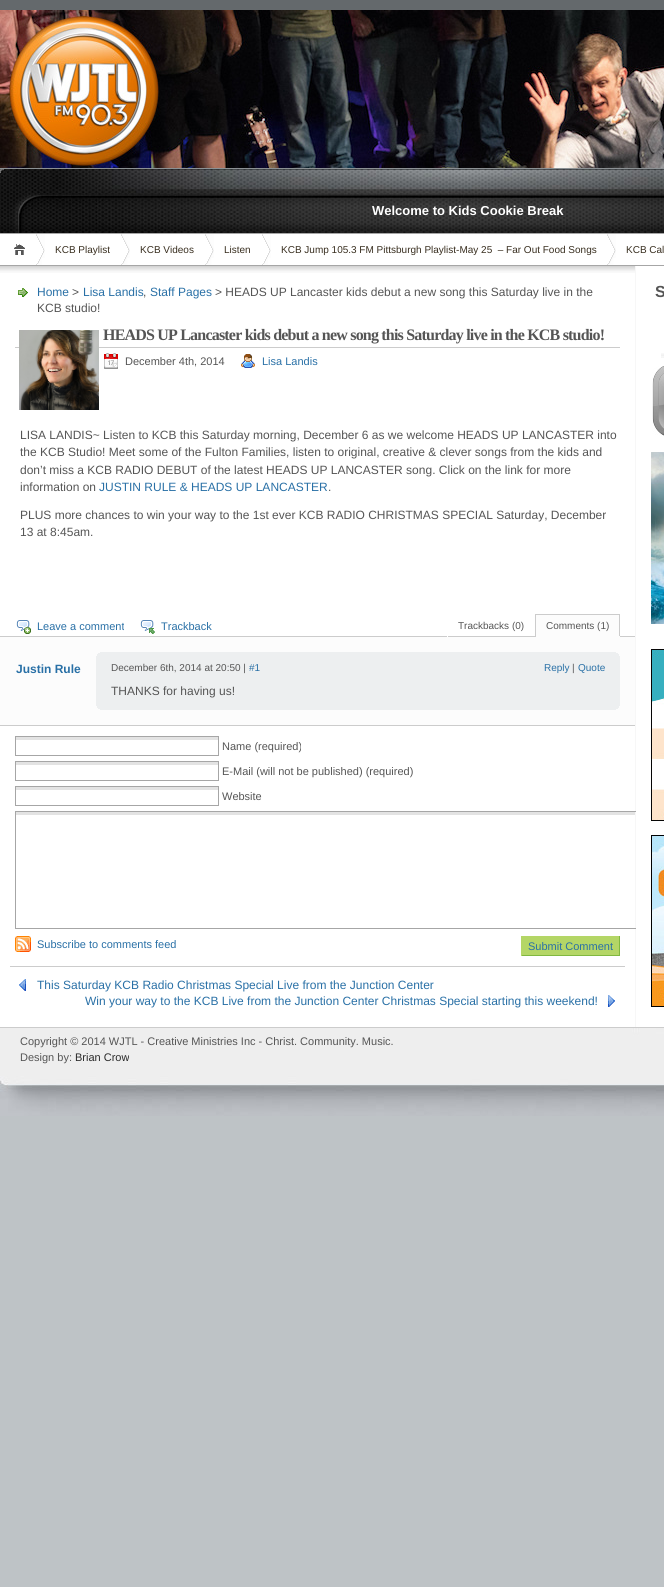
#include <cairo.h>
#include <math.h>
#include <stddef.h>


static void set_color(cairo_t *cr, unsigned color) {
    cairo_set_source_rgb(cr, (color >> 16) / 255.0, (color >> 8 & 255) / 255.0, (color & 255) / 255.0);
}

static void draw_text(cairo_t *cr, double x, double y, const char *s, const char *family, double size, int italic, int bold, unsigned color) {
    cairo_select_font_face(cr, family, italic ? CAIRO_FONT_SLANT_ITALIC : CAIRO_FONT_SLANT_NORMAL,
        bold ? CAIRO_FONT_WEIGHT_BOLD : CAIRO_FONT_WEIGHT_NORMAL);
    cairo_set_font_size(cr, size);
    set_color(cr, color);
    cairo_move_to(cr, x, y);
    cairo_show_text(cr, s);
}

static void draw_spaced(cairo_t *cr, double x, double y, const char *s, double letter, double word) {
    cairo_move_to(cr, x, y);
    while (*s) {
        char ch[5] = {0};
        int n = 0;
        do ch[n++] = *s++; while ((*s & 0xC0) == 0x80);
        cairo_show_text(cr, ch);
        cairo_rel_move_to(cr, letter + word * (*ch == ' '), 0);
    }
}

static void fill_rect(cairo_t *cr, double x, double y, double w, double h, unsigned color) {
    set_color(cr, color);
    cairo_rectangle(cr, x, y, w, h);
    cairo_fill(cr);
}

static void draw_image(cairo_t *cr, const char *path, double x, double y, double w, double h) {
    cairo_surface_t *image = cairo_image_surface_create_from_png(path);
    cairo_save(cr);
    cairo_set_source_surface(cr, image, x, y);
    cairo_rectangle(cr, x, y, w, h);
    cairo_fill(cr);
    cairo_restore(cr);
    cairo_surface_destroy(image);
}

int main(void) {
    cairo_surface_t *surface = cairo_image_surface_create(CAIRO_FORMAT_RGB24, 664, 1587);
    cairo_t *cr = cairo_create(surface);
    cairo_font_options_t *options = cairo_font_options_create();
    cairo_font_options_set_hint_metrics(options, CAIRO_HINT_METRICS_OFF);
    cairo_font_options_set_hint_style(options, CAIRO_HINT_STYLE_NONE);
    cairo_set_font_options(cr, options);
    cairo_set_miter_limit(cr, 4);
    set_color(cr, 0xBEC3C6);
    cairo_paint(cr);
    draw_image(cr, "assets/img1.png", 0, 0, 664, 169);
    draw_image(cr, "assets/img2.png", 0, 10, 664, 158);
    draw_image(cr, "assets/img3.png", 0, 169, 664, 64);
    fill_rect(cr, 0, 233, 664, 1, 0xA6A6A6);
    draw_text(cr, 372, 215, "Welcome to Kids Cookie Break", "Liberation Sans", 13, 0, 1, 0xFFFFFF);
    fill_rect(cr, 0, 234, 664, 31, 0xFFFFFF);
    fill_rect(cr, 0, 265, 664, 1, 0xA6A6A6);
    draw_image(cr, "assets/img4.png", 14, 244, 11, 11);
    draw_image(cr, "assets/img5.png", 36, 234, 9, 31);
    draw_text(cr, 55, 253, "KCB Playlist", "Liberation Sans", 10, 0, 0, 0x382E1F);
    draw_image(cr, "assets/img6.png", 121, 234, 9, 31);
    draw_text(cr, 140, 253, "KCB Videos", "Liberation Sans", 10, 0, 0, 0x382E1F);
    draw_image(cr, "assets/img6.png", 205, 234, 9, 31);
    draw_text(cr, 224, 253, "Listen", "Liberation Sans", 10, 0, 0, 0x382E1F);
    draw_image(cr, "assets/img5.png", 262, 234, 9, 31);
    draw_text(cr, 281, 253, "KCB Jump 105.3 FM Pittsburgh Playlist-May 25  – Far Out Food Songs", "Liberation Sans", 10, 0, 0, 0x382E1F);
    draw_image(cr, "assets/img6.png", 607, 234, 9, 31);
    draw_text(cr, 626, 253, "KCB Cal", "Liberation Sans", 10, 0, 0, 0x382E1F);
    fill_rect(cr, 0, 273, 635, 754, 0xFFFFFF);
    fill_rect(cr, 635, 266, 1, 761, 0xF7F7F7);
    draw_image(cr, "assets/img7.png", 0, 266, 635, 7);
    draw_image(cr, "assets/img8.png", 18, 288, 10, 10);
    draw_text(cr, 37, 296, "Home", "Liberation Sans", 12, 0, 0, 0x2970A6);
    draw_text(cr, 72, 296, ">", "Liberation Sans", 12, 0, 0, 0x555555);
    draw_text(cr, 83, 296, "Lisa Landis", "Liberation Sans", 12, 0, 0, 0x2970A6);
    draw_text(cr, 143, 296, ",", "Liberation Sans", 12, 0, 0, 0x555555);
    draw_text(cr, 150, 296, "Staff Pages", "Liberation Sans", 12, 0, 0, 0x2970A6);
    draw_text(cr, 215, 296, "> HEADS UP Lancaster kids debut a new song this Saturday live in the", "Liberation Sans", 12, 0, 0, 0x555555);
    draw_text(cr, 37, 312, "KCB studio!", "Liberation Sans", 12, 0, 0, 0x555555);
    fill_rect(cr, 15, 347, 605, 1, 0xCCCCCC);
    draw_image(cr, "assets/img9.png", 19, 330, 80, 80);
    cairo_select_font_face(cr, "Liberation Serif", CAIRO_FONT_SLANT_NORMAL, CAIRO_FONT_WEIGHT_BOLD);
    cairo_set_font_size(cr, 16);
    set_color(cr, 0x555555);
    draw_spaced(cr, 103, 340, "HEADS UP Lancaster kids debut a new song this Saturday live in the KCB studio!", -0.8, 0);
    draw_image(cr, "assets/img10.png", 104, 353, 14, 16);
    draw_text(cr, 125, 365, "December 4th, 2014", "Liberation Sans", 11, 0, 0, 0x555555);
    draw_image(cr, "assets/img11.png", 241, 354, 14, 14);
    draw_text(cr, 262, 365, "Lisa Landis", "Liberation Sans", 11, 0, 0, 0x2970A6);
    draw_text(cr, 20, 439, "LISA LANDIS~ Listen to KCB this Saturday morning, December 6 as we welcome HEADS UP LANCASTER into", "Liberation Sans", 12, 0, 0, 0x555555);
    draw_text(cr, 20, 456, "the KCB Studio! Meet some of the Fulton Families, listen to original, creative & clever songs from the kids and", "Liberation Sans", 12, 0, 0, 0x555555);
    draw_text(cr, 20, 474, "don’t miss a KCB RADIO DEBUT of the latest HEADS UP LANCASTER song. Click on the link for more", "Liberation Sans", 12, 0, 0, 0x555555);
    draw_text(cr, 20, 491, "information on", "Liberation Sans", 12, 0, 0, 0x555555);
    draw_text(cr, 99, 491, "JUSTIN RULE & HEADS UP LANCASTER", "Liberation Sans", 12, 0, 0, 0x2970A6);
    draw_text(cr, 328, 491, ".", "Liberation Sans", 12, 0, 0, 0x555555);
    draw_text(cr, 20, 519, "PLUS more chances to win your way to the 1st ever KCB RADIO CHRISTMAS SPECIAL Saturday, December", "Liberation Sans", 12, 0, 0, 0x555555);
    draw_text(cr, 20, 536, "13 at 8:45am.", "Liberation Sans", 12, 0, 0, 0x555555);
    draw_image(cr, "assets/img12.png", 16, 620, 15, 14);
    draw_text(cr, 37, 630, "Leave a comment", "Liberation Sans", 11, 0, 0, 0x2970A6);
    draw_image(cr, "assets/img13.png", 140, 620, 15, 14);
    draw_text(cr, 161, 630, "Trackback", "Liberation Sans", 11, 0, 0, 0x2970A6);
    fill_rect(cr, 0, 636, 635, 1, 0xCCCCCC);
    fill_rect(cr, 534, 636, 1, 1, 0xFFFFFF);
    fill_rect(cr, 534, 636, 1, 1, 0xCCCCCC);
    fill_rect(cr, 447, 636, 1, 1, 0xFFFFFF);
    draw_text(cr, 458, 629, "Trackbacks (0)", "Liberation Sans", 10, 0, 0, 0x555555);
    fill_rect(cr, 536, 615, 83, 21, 0xFCFCFC);
    fill_rect(cr, 535, 614, 85, 1, 0xCCCCCC);
    fill_rect(cr, 619, 614, 1, 23, 0xCCCCCC);
    fill_rect(cr, 535, 636, 85, 1, 0xFCFCFC);
    fill_rect(cr, 535, 614, 1, 23, 0xCCCCCC);
    draw_text(cr, 546, 629, "Comments (1)", "Liberation Sans", 10, 0, 0, 0x555555);
    fill_rect(cr, 0, 637, 635, 88, 0xFCFCFC);
    fill_rect(cr, 0, 725, 635, 1, 0xCCCCCC);
    draw_text(cr, 16, 673, "Justin Rule", "Liberation Sans", 12, 0, 1, 0x2970A6);
    fill_rect(cr, 96, 652, 524, 58, 0xEDEFF0);
    draw_image(cr, "assets/img14.png", 96, 652, 524, 4);
    draw_text(cr, 111, 671, "December 6th, 2014 at 20:50 |", "Liberation Sans", 10, 0, 0, 0x555555);
    draw_text(cr, 249, 671, "#1", "Liberation Sans", 10, 0, 0, 0x2970A6);
    draw_text(cr, 544, 671, "Reply", "Liberation Sans", 10, 0, 0, 0x2970A6);
    draw_text(cr, 572, 671, "|", "Liberation Sans", 10, 0, 0, 0x555555);
    draw_text(cr, 578, 671, "Quote", "Liberation Sans", 10, 0, 0, 0x2970A6);
    draw_image(cr, "assets/img15.png", 96, 706, 524, 4);
    draw_text(cr, 111, 695, "THANKS for having us!", "Liberation Sans", 12, 0, 0, 0x555555);
    fill_rect(cr, 15, 737, 204, 3, 0xE3E3E3);
    cairo_rectangle(cr, 15.5, 736.5, 203, 19);
    set_color(cr, 0xA6A6A6);
    cairo_set_line_width(cr, 1);
    cairo_stroke(cr);
    draw_text(cr, 222, 750, "Name (required)", "Liberation Sans", 11, 0, 0, 0x555555);
    fill_rect(cr, 15, 762, 204, 3, 0xE3E3E3);
    cairo_rectangle(cr, 15.5, 761.5, 203, 19);
    set_color(cr, 0xA6A6A6);
    cairo_stroke(cr);
    draw_text(cr, 222, 775, "E-Mail (will not be published) (required)", "Liberation Sans", 11, 0, 0, 0x555555);
    fill_rect(cr, 15, 787, 204, 3, 0xE3E3E3);
    cairo_rectangle(cr, 15.5, 786.5, 203, 19);
    set_color(cr, 0xA6A6A6);
    cairo_stroke(cr);
    draw_text(cr, 222, 800, "Website", "Liberation Sans", 11, 0, 0, 0x555555);
    fill_rect(cr, 15, 812, 620, 3, 0xE3E3E3);
    cairo_rectangle(cr, 15.5, 811.5, 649, 117);
    set_color(cr, 0xA6A6A6);
    cairo_stroke(cr);
    draw_image(cr, "assets/img16.png", 15, 936, 16, 16);
    draw_text(cr, 37, 948, "Subscribe to comments feed", "Liberation Sans", 11, 0, 0, 0x2970A6);
    fill_rect(cr, 522, 936, 97, 19, 0xB4D666);
    fill_rect(cr, 619, 936, 1, 20, 0x81B840);
    fill_rect(cr, 521, 955, 99, 1, 0x81B840);
    fill_rect(cr, 521, 936, 1, 20, 0xB4D666);
    draw_text(cr, 528, 950, "Submit Comment", "Liberation Sans", 11, 0, 0, 0x2970A6);
    fill_rect(cr, 10, 966, 615, 1, 0xCCCCCC);
    draw_image(cr, "assets/img17.png", 19, 979, 7, 12);
    draw_text(cr, 37, 989, "This Saturday KCB Radio Christmas Special Live from the Junction Center", "Liberation Sans", 12, 0, 0, 0x2970A6);
    draw_image(cr, "assets/img18.png", 608, 995, 7, 12);
    draw_text(cr, 85, 1005, "Win your way to the KCB Live from the Junction Center Christmas Special starting this weekend!", "Liberation Sans", 12, 0, 0, 0x2970A6);
    fill_rect(cr, 636, 266, 28, 761, 0xFFFFFF);
    draw_image(cr, "assets/img19.png", 661, 353, 3, 5);
    draw_text(cr, 655, 297, "S", "Liberation Sans", 16, 0, 1, 0x555555);
    draw_image(cr, "assets/img20.png", 652, 366, 12, 70);
    draw_image(cr, "assets/img21.png", 651, 452, 13, 172);
    draw_image(cr, "assets/img22.png", 651, 649, 13, 172);
    draw_image(cr, "assets/img23.png", 651, 835, 13, 172);
    draw_image(cr, "assets/img24.png", 0, 1028, 664, 88);
    fill_rect(cr, 0, 1027, 664, 1, 0xCCCCCC);
    draw_text(cr, 20, 1045, "Copyright © 2014 WJTL - Creative Ministries Inc - Christ. Community. Music.", "Liberation Sans", 11, 0, 0, 0x555555);
    draw_text(cr, 20, 1061, "Design by:", "Liberation Sans", 11, 0, 0, 0x555555);
    draw_text(cr, 75, 1061, "Brian Crow", "Liberation Sans", 11, 0, 0, 0x2A2A2A);
    cairo_surface_write_to_png(surface, "output.png");
    cairo_font_options_destroy(options);
    cairo_destroy(cr);
    cairo_surface_destroy(surface);
    return 0;
}
